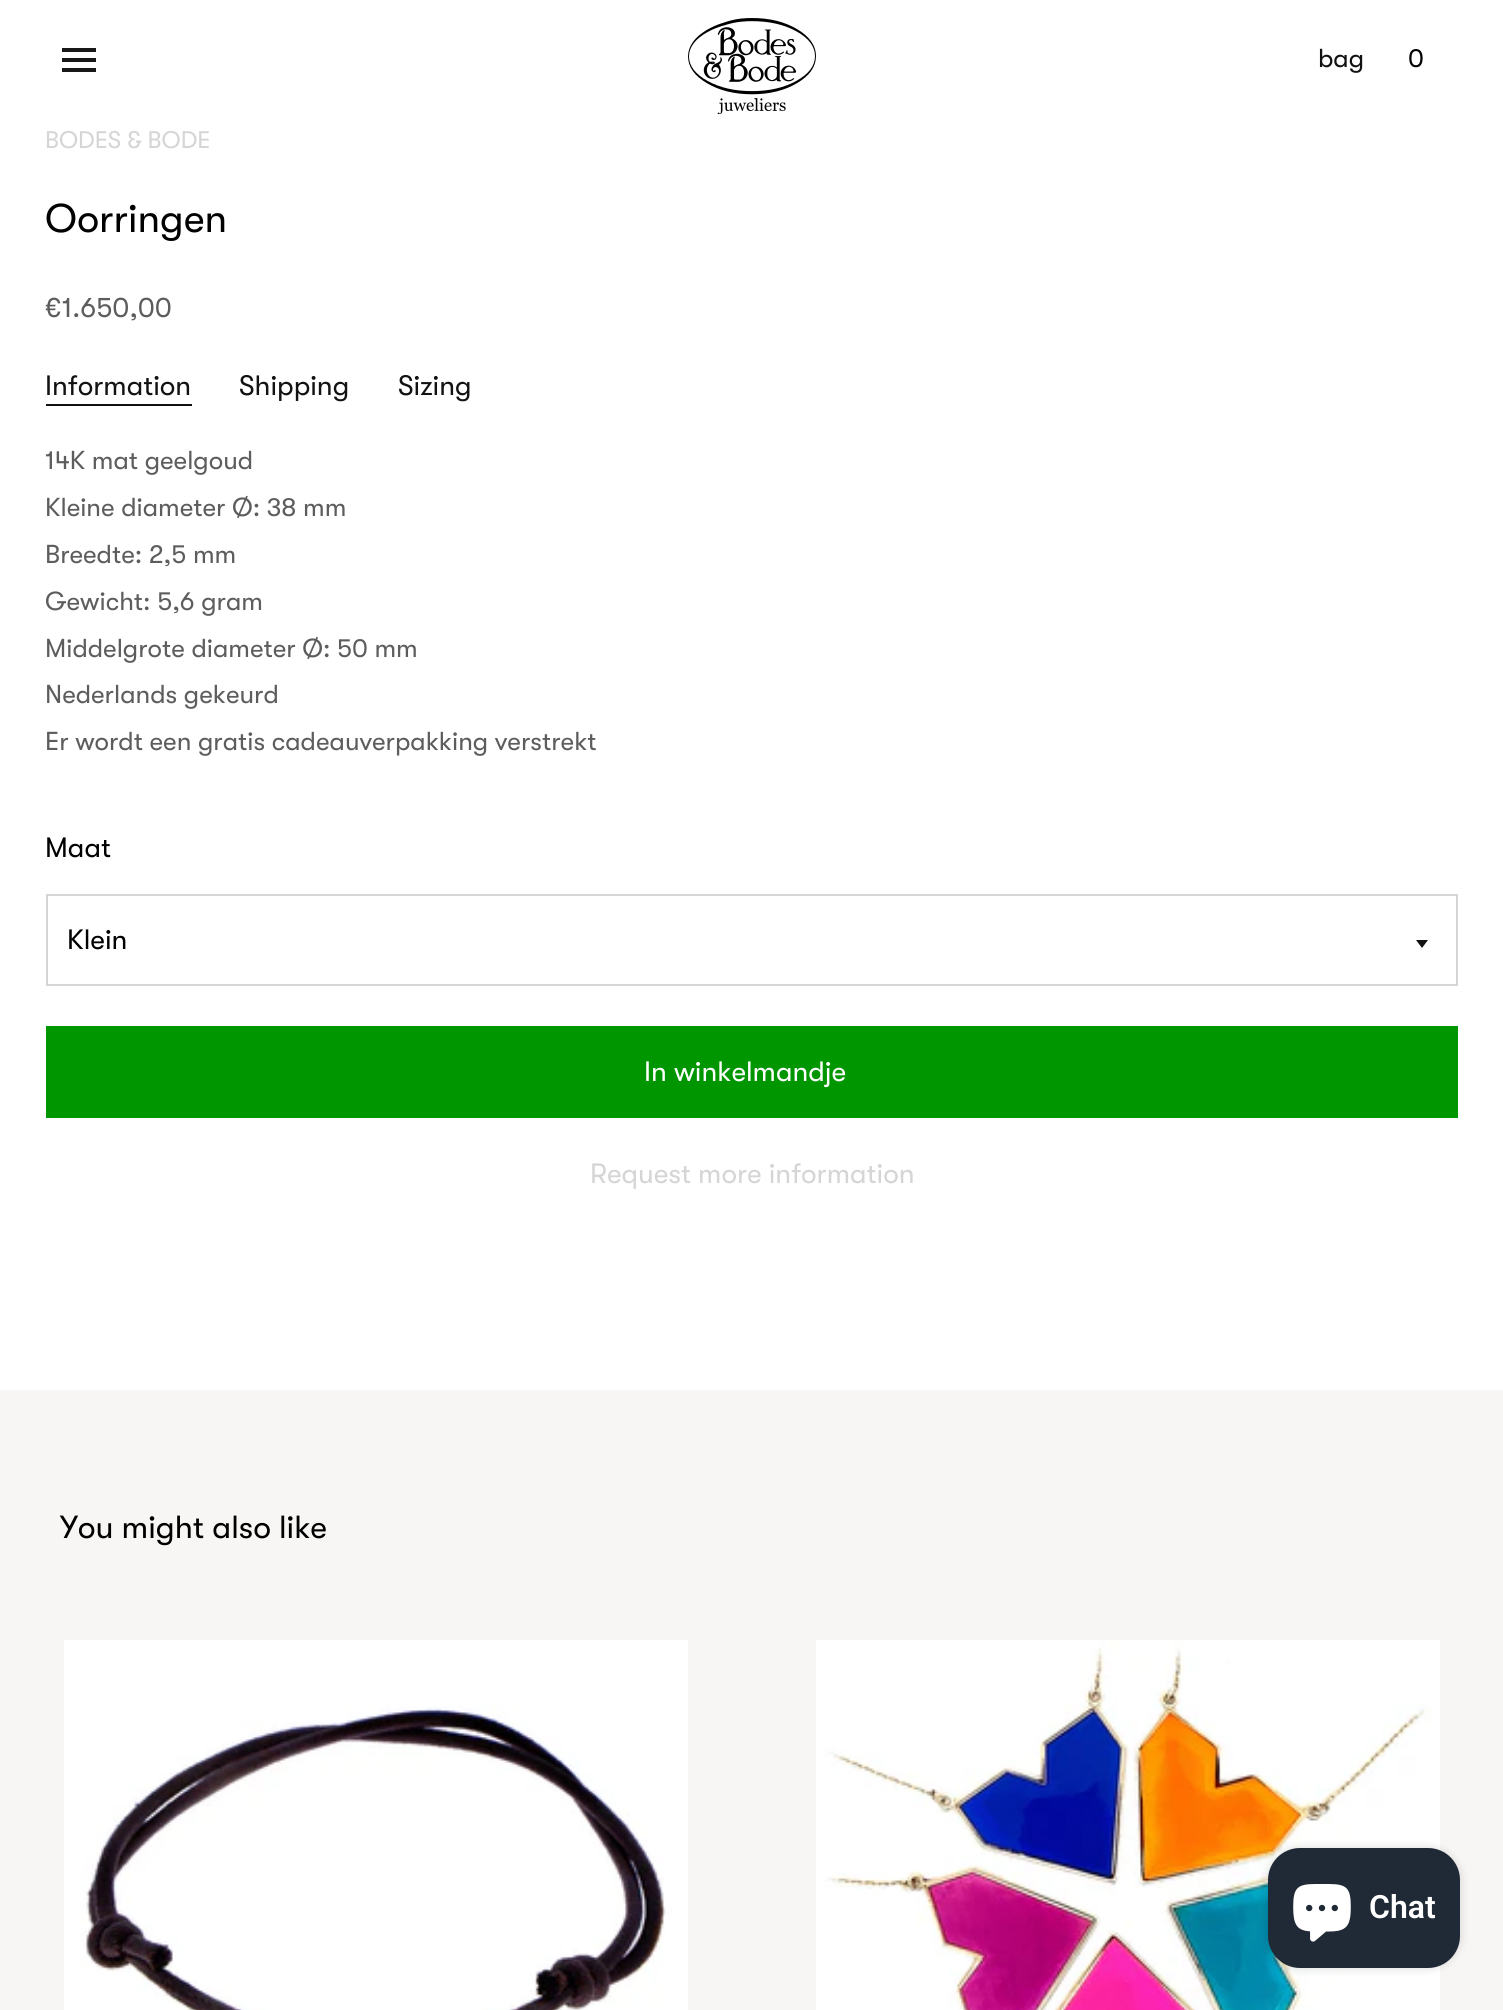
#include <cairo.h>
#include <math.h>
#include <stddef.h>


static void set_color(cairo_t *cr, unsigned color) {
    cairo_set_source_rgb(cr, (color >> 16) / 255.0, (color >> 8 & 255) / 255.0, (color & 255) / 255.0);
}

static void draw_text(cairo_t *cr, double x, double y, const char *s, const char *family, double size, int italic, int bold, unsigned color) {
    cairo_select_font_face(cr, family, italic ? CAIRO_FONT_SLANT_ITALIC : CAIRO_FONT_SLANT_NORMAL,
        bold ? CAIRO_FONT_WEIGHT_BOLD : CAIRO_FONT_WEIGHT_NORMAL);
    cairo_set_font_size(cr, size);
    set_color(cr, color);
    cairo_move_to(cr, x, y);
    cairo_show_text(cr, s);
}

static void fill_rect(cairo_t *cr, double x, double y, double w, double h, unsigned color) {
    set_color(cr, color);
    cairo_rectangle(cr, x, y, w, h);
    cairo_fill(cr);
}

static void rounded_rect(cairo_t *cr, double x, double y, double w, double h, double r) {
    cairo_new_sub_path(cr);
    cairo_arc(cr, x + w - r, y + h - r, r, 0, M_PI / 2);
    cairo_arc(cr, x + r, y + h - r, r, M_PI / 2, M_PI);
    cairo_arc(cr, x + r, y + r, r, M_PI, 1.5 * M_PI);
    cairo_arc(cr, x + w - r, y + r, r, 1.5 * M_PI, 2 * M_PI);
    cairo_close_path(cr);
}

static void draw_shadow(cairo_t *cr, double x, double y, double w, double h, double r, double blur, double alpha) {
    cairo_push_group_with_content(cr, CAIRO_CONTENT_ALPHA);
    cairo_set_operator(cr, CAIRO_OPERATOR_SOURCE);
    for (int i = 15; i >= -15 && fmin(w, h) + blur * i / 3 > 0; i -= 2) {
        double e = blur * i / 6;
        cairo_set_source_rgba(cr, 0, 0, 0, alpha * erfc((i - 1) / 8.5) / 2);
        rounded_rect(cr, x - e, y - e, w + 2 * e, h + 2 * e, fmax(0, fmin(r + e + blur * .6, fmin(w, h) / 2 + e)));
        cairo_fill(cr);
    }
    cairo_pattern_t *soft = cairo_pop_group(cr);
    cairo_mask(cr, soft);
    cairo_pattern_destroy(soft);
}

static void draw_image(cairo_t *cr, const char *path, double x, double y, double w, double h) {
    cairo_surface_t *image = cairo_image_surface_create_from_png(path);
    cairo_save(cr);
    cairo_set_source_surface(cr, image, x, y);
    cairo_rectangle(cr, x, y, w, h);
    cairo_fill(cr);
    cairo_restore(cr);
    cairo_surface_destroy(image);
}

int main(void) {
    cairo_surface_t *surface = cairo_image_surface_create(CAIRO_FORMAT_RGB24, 1503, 2010);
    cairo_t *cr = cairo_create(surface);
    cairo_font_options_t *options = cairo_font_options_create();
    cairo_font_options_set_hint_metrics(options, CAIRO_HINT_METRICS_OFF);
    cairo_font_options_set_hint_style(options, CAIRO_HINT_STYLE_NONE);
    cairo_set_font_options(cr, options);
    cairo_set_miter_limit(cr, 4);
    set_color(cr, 0xFFFFFF);
    cairo_paint(cr);
    fill_rect(cr, 62, 48, 34, 4, 0x181818);
    fill_rect(cr, 62, 58, 34, 4, 0x181818);
    fill_rect(cr, 62, 68, 34, 4, 0x181818);
    draw_image(cr, "assets/img1.png", 688, 18, 128, 96);
    draw_text(cr, 1318, 67, "bag", "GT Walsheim", 26, 0, 0, 0x121212);
    draw_text(cr, 1408, 67, "0", "GT Walsheim", 26, 0, 0, 0x000000);
    draw_text(cr, 45, 148, "BODES & BODE", "GT Walsheim", 24, 0, 0, 0xD5D5D5);
    draw_text(cr, 45, 232, "Oorringen", "GT Walsheim", 40, 0, 0, 0x000000);
    draw_text(cr, 45, 317, "€1.650,00", "GT Walsheim", 28, 0, 0, 0x5D5D5D);
    draw_text(cr, 45, 395, "Information", "GT Walsheim", 28, 0, 0, 0x121212);
    fill_rect(cr, 46, 404, 146, 2, 0x121212);
    draw_text(cr, 239, 395, "Shipping", "GT Walsheim", 28, 0, 0, 0x121212);
    draw_text(cr, 398, 395, "Sizing", "GT Walsheim", 28, 0, 0, 0x121212);
    draw_text(cr, 45, 469, "14K mat geelgoud", "GT Walsheim", 26, 0, 0, 0x5D5D5D);
    draw_text(cr, 45, 516, "Kleine diameter Ø: 38 mm", "GT Walsheim", 26, 0, 0, 0x5D5D5D);
    draw_text(cr, 45, 563, "Breedte: 2,5 mm", "GT Walsheim", 26, 0, 0, 0x5D5D5D);
    draw_text(cr, 45, 610, "Gewicht: 5,6 gram", "GT Walsheim", 26, 0, 0, 0x5D5D5D);
    draw_text(cr, 45, 657, "Middelgrote diameter Ø: 50 mm", "GT Walsheim", 26, 0, 0, 0x5D5D5D);
    draw_text(cr, 45, 703, "Nederlands gekeurd", "GT Walsheim", 26, 0, 0, 0x5D5D5D);
    draw_text(cr, 45, 750, "Er wordt een gratis cadeauverpakking verstrekt", "GT Walsheim", 26, 0, 0, 0x5D5D5D);
    draw_text(cr, 45, 857, "Maat", "GT Walsheim", 28, 0, 0, 0x000000);
    cairo_rectangle(cr, 47, 895, 1410, 90);
    set_color(cr, 0xD5D5D5);
    cairo_stroke(cr);
    draw_text(cr, 67, 949, "Klein", "GT Walsheim", 28, 0, 0, 0x000000);
    set_color(cr, 0x121212);
    cairo_new_path(cr);
    cairo_move_to(cr, 1416, 940);
    cairo_line_to(cr, 1428, 940);
    cairo_line_to(cr, 1422, 948);
    cairo_close_path(cr);
    cairo_fill(cr);
    fill_rect(cr, 46, 1026, 1412, 92, 0x009600);
    draw_text(cr, 644, 1081, "In winkelmandje", "GT Walsheim", 28, 0, 0, 0xFFFFFF);
    draw_text(cr, 590, 1183, "Request more information", "GT Walsheim", 28, 0, 0, 0xD5D5D5);
    fill_rect(cr, 0, 1390, 1503, 620, 0xF8F6F4);
    draw_image(cr, "assets/img2.png", 64, 1640, 624, 370);
    draw_text(cr, 60, 1538, "You might also like", "GT Walsheim", 32, 0, 0, 0x000000);
    draw_image(cr, "assets/img3.png", 816, 1640, 624, 370);
    set_color(cr, 0x000000);
    draw_shadow(cr, 1268, 1848, 192, 120, 32, 5, 0.15);
    set_color(cr, 0x202A36);
    rounded_rect(cr, 1268, 1848, 192, 120, 32);
    cairo_fill(cr);
    draw_image(cr, "assets/img4.png", 1293, 1884, 58, 58);
    draw_text(cr, 1369, 1918, "Chat", "Roboto SemiBold", 32, 0, 0, 0xFFFFFF);
    cairo_surface_write_to_png(surface, "output.png");
    cairo_font_options_destroy(options);
    cairo_destroy(cr);
    cairo_surface_destroy(surface);
    return 0;
}
